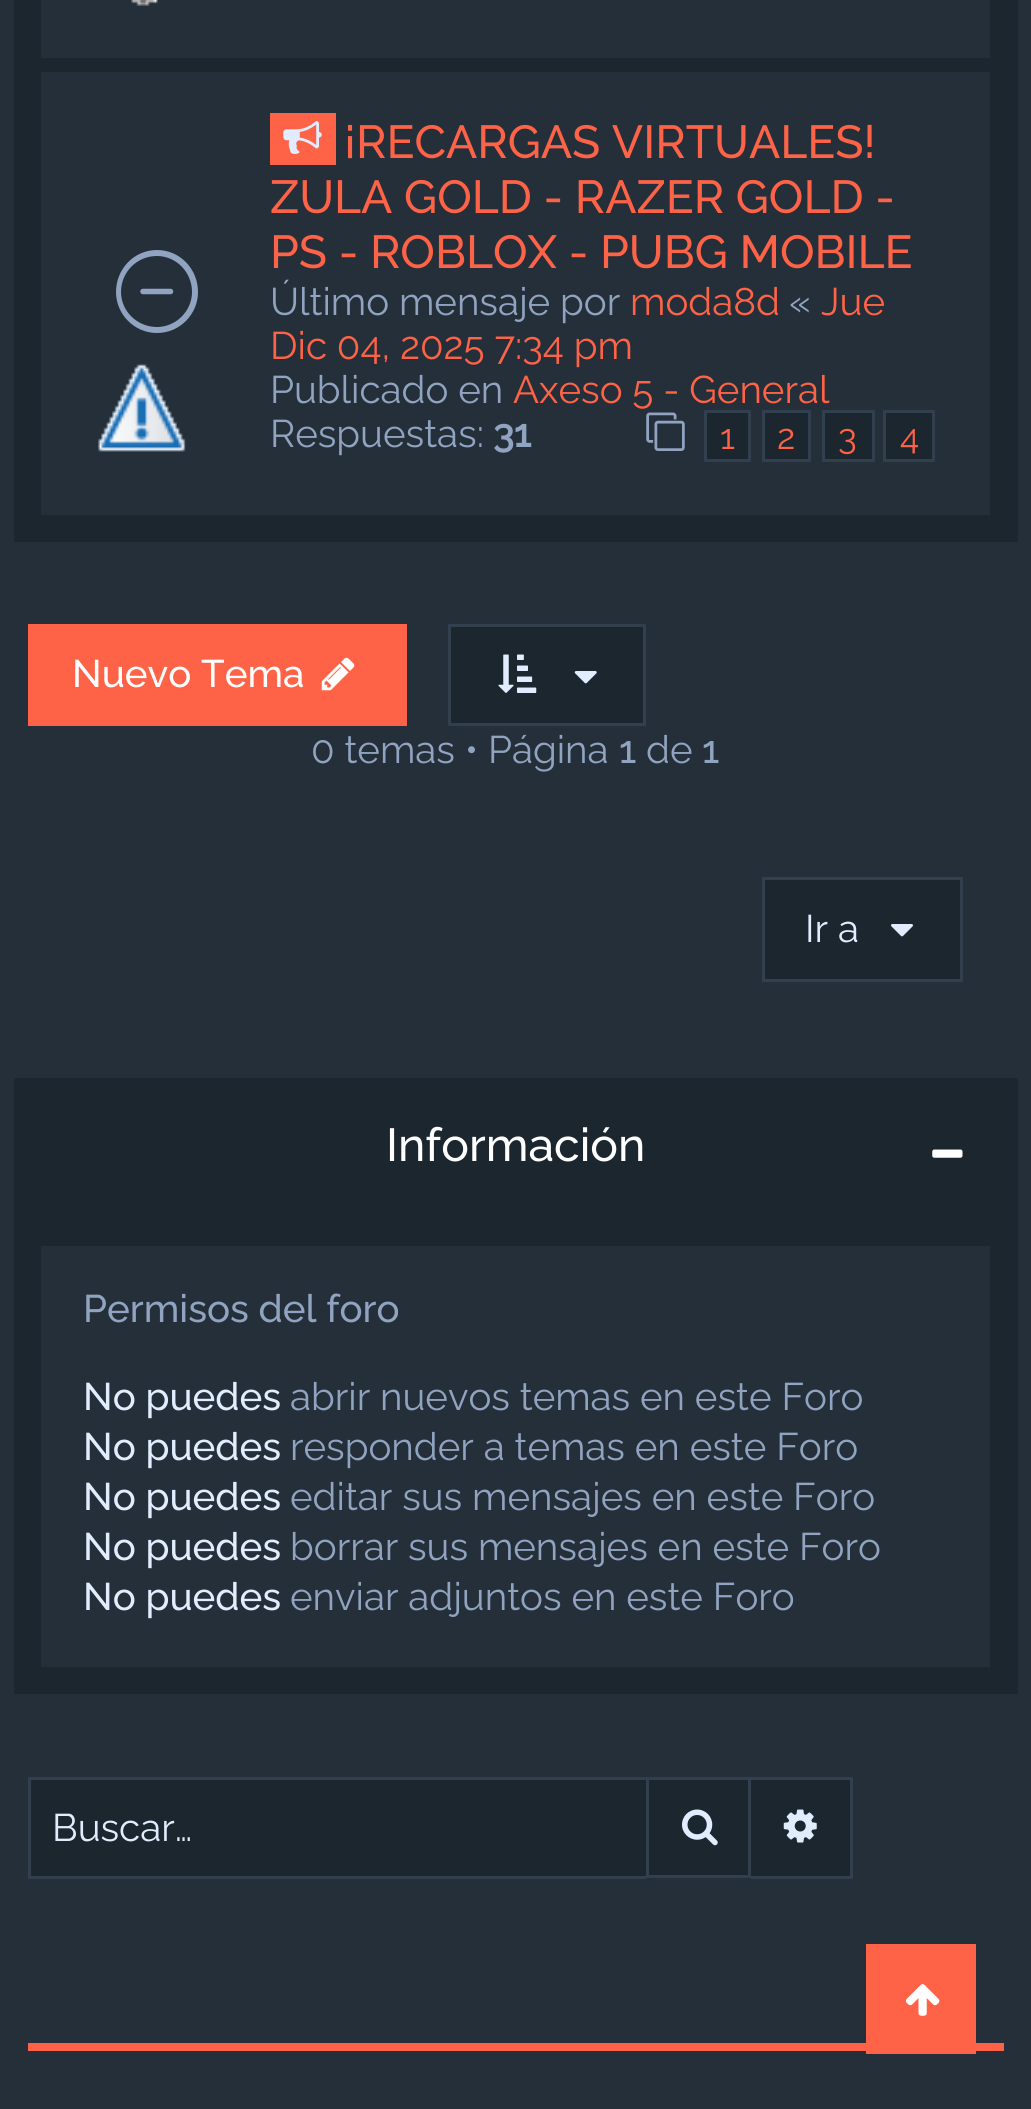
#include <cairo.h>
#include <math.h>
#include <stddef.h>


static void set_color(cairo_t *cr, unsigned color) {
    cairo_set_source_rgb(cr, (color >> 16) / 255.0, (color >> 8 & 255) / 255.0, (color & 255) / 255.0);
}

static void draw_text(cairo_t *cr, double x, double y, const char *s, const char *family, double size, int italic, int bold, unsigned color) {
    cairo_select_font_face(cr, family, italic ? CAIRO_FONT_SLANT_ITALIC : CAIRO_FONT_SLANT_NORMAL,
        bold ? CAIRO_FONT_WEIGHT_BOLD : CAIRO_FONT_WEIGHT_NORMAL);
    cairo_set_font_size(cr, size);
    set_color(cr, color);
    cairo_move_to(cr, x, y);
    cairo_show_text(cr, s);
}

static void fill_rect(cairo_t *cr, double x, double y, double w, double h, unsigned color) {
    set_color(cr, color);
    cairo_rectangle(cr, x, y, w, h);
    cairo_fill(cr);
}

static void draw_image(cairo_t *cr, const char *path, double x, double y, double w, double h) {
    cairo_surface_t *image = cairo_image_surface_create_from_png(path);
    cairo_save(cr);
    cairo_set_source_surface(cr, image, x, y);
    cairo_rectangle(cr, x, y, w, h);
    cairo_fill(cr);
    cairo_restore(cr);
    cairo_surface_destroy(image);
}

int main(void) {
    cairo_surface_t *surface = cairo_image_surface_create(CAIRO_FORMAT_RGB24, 1031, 2109);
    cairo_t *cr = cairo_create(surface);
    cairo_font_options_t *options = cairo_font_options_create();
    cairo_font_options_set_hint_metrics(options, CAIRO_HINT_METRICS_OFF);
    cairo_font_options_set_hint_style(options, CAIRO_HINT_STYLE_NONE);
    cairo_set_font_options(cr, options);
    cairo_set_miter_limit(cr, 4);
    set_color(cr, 0x252F39);
    cairo_paint(cr);
    fill_rect(cr, 14, 0, 1004, 542, 0x1C262F);
    fill_rect(cr, 41, 0, 949, 58, 0x252F39);
    draw_image(cr, "assets/img1.png", 131, 0, 27, 6);
    fill_rect(cr, 41, 72, 949, 443, 0x252F39);
    set_color(cr, 0x90A3C0);
    cairo_new_path(cr);
    cairo_move_to(cr, 157, 256);
    cairo_curve_to(cr, 176, 256, 192, 272, 192, 292);
    cairo_curve_to(cr, 192, 311, 176, 327, 157, 327);
    cairo_curve_to(cr, 137, 327, 121, 311, 121, 292);
    cairo_curve_to(cr, 121, 272, 137, 256, 157, 256);
    cairo_move_to(cr, 157, 250);
    cairo_curve_to(cr, 134, 250, 116, 269, 116, 292);
    cairo_curve_to(cr, 116, 314, 134, 333, 157, 333);
    cairo_curve_to(cr, 180, 333, 198, 314, 198, 292);
    cairo_curve_to(cr, 198, 269, 180, 250, 157, 250);
    cairo_close_path(cr);
    cairo_fill(cr);
    cairo_new_path(cr);
    cairo_move_to(cr, 143, 291.5);
    cairo_line_to(cr, 170.5, 291.5);
    cairo_set_line_width(cr, 5.5);
    cairo_set_line_cap(cr, CAIRO_LINE_CAP_ROUND);
    cairo_stroke(cr);
    draw_image(cr, "assets/img2.png", 98, 364, 88, 88);
    fill_rect(cr, 270, 113, 66, 52, 0xFF6347);
    draw_image(cr, "assets/img3.png", 283, 121, 39, 33);
    draw_text(cr, 344, 158, "¡RECARGAS VIRTUALES!", "Raleway Medium", 46.25, 0, 0, 0xFF6347);
    draw_text(cr, 270, 213, "ZULA GOLD - RAZER GOLD -", "Raleway Medium", 46.25, 0, 0, 0xFF6347);
    draw_text(cr, 270, 268, "PS - ROBLOX - PUBG MOBILE", "Raleway Medium", 46.25, 0, 0, 0xFF6347);
    draw_text(cr, 270, 315, "Último mensaje por", "Raleway", 38.5, 0, 0, 0x90A3C0);
    draw_text(cr, 630, 315, "moda8d", "Raleway", 38.5, 0, 0, 0xFF6347);
    draw_text(cr, 789, 315, "«", "Raleway", 38.5, 0, 0, 0x90A3C0);
    draw_text(cr, 821, 315, "Jue", "Raleway", 38.5, 0, 0, 0xFF6347);
    draw_text(cr, 270, 359, "Dic 04, 2025 7:34 pm", "Raleway", 38.5, 0, 0, 0xFF6347);
    draw_text(cr, 270, 403, "Publicado en", "Raleway", 38.5, 0, 0, 0x90A3C0);
    draw_text(cr, 513, 403, "Axeso 5 - General", "Raleway", 38.5, 0, 0, 0xFF6347);
    draw_text(cr, 270, 447, "Respuestas:", "Raleway", 38.5, 0, 0, 0x90A3C0);
    draw_text(cr, 493, 447, "31", "Raleway", 38.5, 0, 1, 0x90A3C0);
    draw_image(cr, "assets/img4.png", 646, 412, 39, 39);
    set_color(cr, 0x1C262F);
    cairo_rectangle(cr, 705.5, 411.5, 44, 49);
    cairo_fill_preserve(cr);
    set_color(cr, 0x323F4E);
    cairo_set_line_width(cr, 3);
    cairo_set_line_cap(cr, CAIRO_LINE_CAP_BUTT);
    cairo_stroke(cr);
    draw_text(cr, 720, 449, "1", "Raleway", 35, 0, 0, 0xFF6347);
    set_color(cr, 0x1C262F);
    cairo_rectangle(cr, 763.5, 411.5, 46, 49);
    cairo_fill_preserve(cr);
    set_color(cr, 0x323F4E);
    cairo_stroke(cr);
    draw_text(cr, 777, 449, "2", "Raleway", 35, 0, 0, 0xFF6347);
    set_color(cr, 0x1C262F);
    cairo_rectangle(cr, 823.5, 411.5, 50, 49);
    cairo_fill_preserve(cr);
    set_color(cr, 0x323F4E);
    cairo_stroke(cr);
    draw_text(cr, 838, 449, "3", "Raleway", 35, 0, 0, 0xFF6347);
    set_color(cr, 0x1C262F);
    cairo_rectangle(cr, 884.5, 411.5, 49, 49);
    cairo_fill_preserve(cr);
    set_color(cr, 0x323F4E);
    cairo_stroke(cr);
    draw_text(cr, 900, 449, "4", "Raleway", 35, 0, 0, 0xFF6347);
    fill_rect(cr, 28, 624, 379, 102, 0xFF6347);
    draw_text(cr, 72, 687, "Nuevo Tema", "Raleway Medium", 38.5, 0, 0, 0xFFFFFF);
    draw_image(cr, "assets/img5.png", 321, 657, 34, 34);
    set_color(cr, 0x1C262F);
    cairo_rectangle(cr, 449.5, 625.5, 195, 99);
    cairo_fill_preserve(cr);
    set_color(cr, 0x323F4E);
    cairo_stroke(cr);
    draw_image(cr, "assets/img6.png", 498, 654, 39, 39);
    draw_image(cr, "assets/img7.png", 574, 671, 23, 13);
    draw_text(cr, 311, 763, "0 temas • Página", "Raleway", 38.5, 0, 0, 0x90A3C0);
    draw_text(cr, 619, 763, "1", "Raleway Medium", 38.5, 0, 0, 0x90A3C0);
    draw_text(cr, 646, 763, "de", "Raleway", 38.5, 0, 0, 0x90A3C0);
    draw_text(cr, 702, 763, "1", "Raleway Medium", 38.5, 0, 0, 0x90A3C0);
    set_color(cr, 0x1C262F);
    cairo_rectangle(cr, 763.5, 878.5, 198, 102);
    cairo_fill_preserve(cr);
    set_color(cr, 0x323F4E);
    cairo_stroke(cr);
    draw_text(cr, 805, 942, "Ir a", "Raleway", 38.5, 0, 0, 0xE1EDFF);
    draw_image(cr, "assets/img8.png", 891, 924, 22, 13);
    fill_rect(cr, 14, 1078, 1004, 616, 0x1C262F);
    draw_text(cr, 386, 1161, "Información", "Raleway Medium", 46.25, 0, 0, 0xFFFFFF);
    draw_image(cr, "assets/img9.png", 932, 1149, 31, 9);
    fill_rect(cr, 41, 1246, 949, 421, 0x252F39);
    draw_text(cr, 83, 1322, "Permisos del foro", "Raleway Medium", 38.5, 0, 0, 0x90A3C0);
    draw_text(cr, 83, 1410, "No puedes", "Raleway Medium", 38.5, 0, 0, 0xE1EDFF);
    draw_text(cr, 290, 1410, "abrir nuevos temas en este Foro", "Raleway", 38.5, 0, 0, 0x90A3C0);
    draw_text(cr, 83, 1460, "No puedes", "Raleway Medium", 38.5, 0, 0, 0xE1EDFF);
    draw_text(cr, 290, 1460, "responder a temas en este Foro", "Raleway", 38.5, 0, 0, 0x90A3C0);
    draw_text(cr, 83, 1510, "No puedes", "Raleway Medium", 38.5, 0, 0, 0xE1EDFF);
    draw_text(cr, 290, 1510, "editar sus mensajes en este Foro", "Raleway", 38.5, 0, 0, 0x90A3C0);
    draw_text(cr, 83, 1560, "No puedes", "Raleway Medium", 38.5, 0, 0, 0xE1EDFF);
    draw_text(cr, 290, 1560, "borrar sus mensajes en este Foro", "Raleway", 38.5, 0, 0, 0x90A3C0);
    draw_text(cr, 83, 1610, "No puedes", "Raleway Medium", 38.5, 0, 0, 0xE1EDFF);
    draw_text(cr, 290, 1610, "enviar adjuntos en este Foro", "Raleway", 38.5, 0, 0, 0x90A3C0);
    fill_rect(cr, 31, 1780, 615, 96, 0x1C262F);
    fill_rect(cr, 28, 1777, 618, 3, 0x323F4E);
    fill_rect(cr, 28, 1876, 618, 3, 0x323F4E);
    fill_rect(cr, 28, 1777, 3, 101, 0x323F4E);
    draw_text(cr, 52, 1841, "Buscar…", "Raleway", 38.5, 0, 0, 0xE1EDFF);
    set_color(cr, 0x1C262F);
    cairo_rectangle(cr, 647.5, 1778.5, 102, 98);
    cairo_fill_preserve(cr);
    set_color(cr, 0x323F4E);
    cairo_stroke(cr);
    draw_image(cr, "assets/img10.png", 682, 1809, 36, 37);
    fill_rect(cr, 751, 1780, 99, 96, 0x1C262F);
    fill_rect(cr, 751, 1777, 102, 3, 0x323F4E);
    fill_rect(cr, 850, 1777, 3, 101, 0x323F4E);
    fill_rect(cr, 751, 1876, 102, 3, 0x323F4E);
    draw_image(cr, "assets/img11.png", 783, 1809, 34, 34);
    fill_rect(cr, 28, 2043, 976, 8, 0xFF6347);
    fill_rect(cr, 866, 1944, 110, 110, 0xFF6347);
    draw_image(cr, "assets/img12.png", 905, 1984, 35, 32);
    cairo_surface_write_to_png(surface, "output.png");
    cairo_font_options_destroy(options);
    cairo_destroy(cr);
    cairo_surface_destroy(surface);
    return 0;
}
